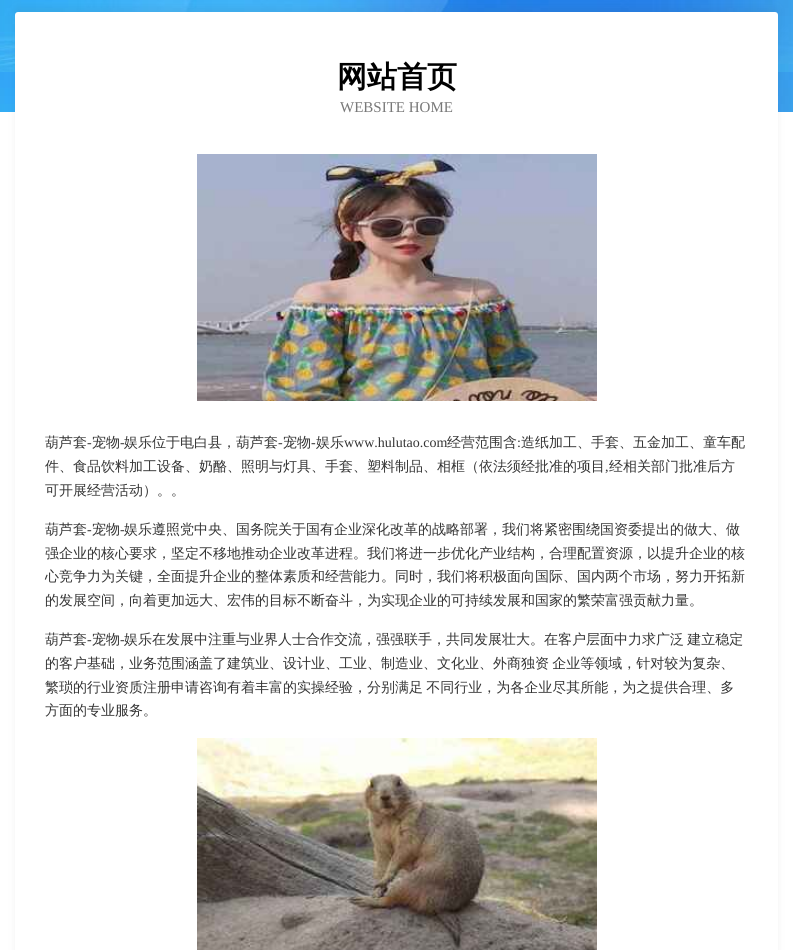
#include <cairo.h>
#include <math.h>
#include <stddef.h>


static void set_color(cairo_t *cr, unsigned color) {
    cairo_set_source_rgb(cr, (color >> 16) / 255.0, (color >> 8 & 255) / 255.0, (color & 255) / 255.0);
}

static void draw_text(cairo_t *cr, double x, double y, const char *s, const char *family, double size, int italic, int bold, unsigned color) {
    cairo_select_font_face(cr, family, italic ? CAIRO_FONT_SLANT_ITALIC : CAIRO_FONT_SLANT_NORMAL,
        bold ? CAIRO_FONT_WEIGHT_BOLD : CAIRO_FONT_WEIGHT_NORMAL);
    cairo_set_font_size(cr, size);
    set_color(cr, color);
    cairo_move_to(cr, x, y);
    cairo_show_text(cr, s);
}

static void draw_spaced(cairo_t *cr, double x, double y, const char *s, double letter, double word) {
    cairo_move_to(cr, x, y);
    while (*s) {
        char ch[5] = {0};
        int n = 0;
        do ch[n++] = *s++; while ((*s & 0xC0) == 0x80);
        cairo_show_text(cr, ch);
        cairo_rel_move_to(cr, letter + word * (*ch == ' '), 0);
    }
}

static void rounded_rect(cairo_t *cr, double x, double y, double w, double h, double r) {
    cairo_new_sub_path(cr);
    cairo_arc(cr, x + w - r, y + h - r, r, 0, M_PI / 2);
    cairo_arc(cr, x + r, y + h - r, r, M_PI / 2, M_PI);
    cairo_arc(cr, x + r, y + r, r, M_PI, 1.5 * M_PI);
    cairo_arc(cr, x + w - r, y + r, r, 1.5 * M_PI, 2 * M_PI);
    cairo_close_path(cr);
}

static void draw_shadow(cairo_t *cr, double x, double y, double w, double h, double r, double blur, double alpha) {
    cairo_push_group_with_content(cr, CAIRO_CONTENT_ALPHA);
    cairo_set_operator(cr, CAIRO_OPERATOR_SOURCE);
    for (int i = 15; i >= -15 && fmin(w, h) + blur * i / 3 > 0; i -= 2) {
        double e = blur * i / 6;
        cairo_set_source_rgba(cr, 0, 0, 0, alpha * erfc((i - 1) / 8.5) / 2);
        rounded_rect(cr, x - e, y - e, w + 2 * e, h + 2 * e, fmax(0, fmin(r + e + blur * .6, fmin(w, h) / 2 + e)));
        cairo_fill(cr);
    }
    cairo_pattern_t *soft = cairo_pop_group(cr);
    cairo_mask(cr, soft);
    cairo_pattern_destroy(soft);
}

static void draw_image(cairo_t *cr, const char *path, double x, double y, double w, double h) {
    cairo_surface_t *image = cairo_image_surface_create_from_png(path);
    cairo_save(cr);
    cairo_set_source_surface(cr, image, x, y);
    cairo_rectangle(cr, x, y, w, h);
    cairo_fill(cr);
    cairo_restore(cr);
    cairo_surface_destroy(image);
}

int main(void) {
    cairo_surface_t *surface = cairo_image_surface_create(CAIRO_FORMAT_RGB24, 793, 950);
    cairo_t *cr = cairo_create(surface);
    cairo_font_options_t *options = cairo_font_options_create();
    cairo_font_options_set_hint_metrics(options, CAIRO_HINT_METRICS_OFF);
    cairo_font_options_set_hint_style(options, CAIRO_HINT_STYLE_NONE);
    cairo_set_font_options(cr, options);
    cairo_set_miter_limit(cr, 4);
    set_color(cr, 0xFFFFFF);
    cairo_paint(cr);
    draw_image(cr, "assets/img1.png", 0, 0, 793, 112);
    set_color(cr, 0x424242);
    draw_shadow(cr, 16, 8, 761, 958, 2, 4.5, 0.09);
    set_color(cr, 0xFFFFFF);
    rounded_rect(cr, 15, 12, 763, 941, 3);
    cairo_fill(cr);
    draw_text(cr, 337, 87, "网站首页", "WenQuanYi Zen Hei", 30, 0, 1, 0x000000);
    draw_text(cr, 340, 112, "WEBSITE HOME", "Liberation Serif", 15, 0, 0, 0x787878);
    draw_image(cr, "assets/img2.png", 197, 154, 400, 247);
    draw_text(cr, 45, 447, "葫芦套", "WenQuanYi Zen Hei Medium", 14, 0, 0, 0x343434);
    draw_text(cr, 87, 447, "-", "Liberation Serif", 14, 0, 0, 0x343434);
    draw_text(cr, 92, 447, "宠物", "WenQuanYi Zen Hei Medium", 14, 0, 0, 0x343434);
    draw_text(cr, 120, 447, "-", "Liberation Serif", 14, 0, 0, 0x343434);
    draw_text(cr, 124, 447, "娱乐位于电白县，葫芦套", "WenQuanYi Zen Hei Medium", 14, 0, 0, 0x343434);
    draw_text(cr, 278, 447, "-", "Liberation Serif", 14, 0, 0, 0x343434);
    draw_text(cr, 283, 447, "宠物", "WenQuanYi Zen Hei Medium", 14, 0, 0, 0x343434);
    draw_text(cr, 311, 447, "-", "Liberation Serif", 14, 0, 0, 0x343434);
    draw_text(cr, 316, 447, "娱乐", "WenQuanYi Zen Hei Medium", 14, 0, 0, 0x343434);
    draw_text(cr, 344, 447, "www.hulutao.com", "Liberation Serif", 14, 0, 0, 0x343434);
    draw_text(cr, 447, 447, "经营范围含", "WenQuanYi Zen Hei Medium", 14, 0, 0, 0x343434);
    draw_text(cr, 517, 447, ":", "Liberation Serif", 14, 0, 0, 0x343434);
    draw_text(cr, 521, 447, "造纸加工、手套、五金加工、童车配", "WenQuanYi Zen Hei Medium", 14, 0, 0, 0x343434);
    draw_text(cr, 45, 471, "件、食品饮料加工设备、奶酪、照明与灯具、手套、塑料制品、相框（依法须经批准的项目", "WenQuanYi Zen Hei Medium", 14, 0, 0, 0x343434);
    draw_text(cr, 605, 471, ",", "Liberation Serif", 14, 0, 0, 0x343434);
    draw_text(cr, 609, 471, "经相关部门批准后方", "WenQuanYi Zen Hei Medium", 14, 0, 0, 0x343434);
    draw_text(cr, 45, 495, "可开展经营活动）。。", "WenQuanYi Zen Hei Medium", 14, 0, 0, 0x343434);
    draw_text(cr, 45, 534, "葫芦套", "WenQuanYi Zen Hei Medium", 14, 0, 0, 0x343434);
    draw_text(cr, 87, 534, "-", "Liberation Serif", 14, 0, 0, 0x343434);
    draw_text(cr, 92, 534, "宠物", "WenQuanYi Zen Hei Medium", 14, 0, 0, 0x343434);
    draw_text(cr, 120, 534, "-", "Liberation Serif", 14, 0, 0, 0x343434);
    draw_text(cr, 124, 534, "娱乐遵照党中央、国务院关于国有企业深化改革的战略部署，我们将紧密围绕国资委提出的做大、做", "WenQuanYi Zen Hei Medium", 14, 0, 0, 0x343434);
    draw_text(cr, 45, 558, "强企业的核心要求，坚定不移地推动企业改革进程。我们将进一步优化产业结构，合理配置资源，以提升企业的核", "WenQuanYi Zen Hei Medium", 14, 0, 0, 0x343434);
    draw_text(cr, 45, 581, "心竞争力为关键，全面提升企业的整体素质和经营能力。同时，我们将积极面向国际、国内两个市场，努力开拓新", "WenQuanYi Zen Hei Medium", 14, 0, 0, 0x343434);
    draw_text(cr, 45, 605, "的发展空间，向着更加远大、宏伟的目标不断奋斗，为实现企业的可持续发展和国家的繁荣富强贡献力量。", "WenQuanYi Zen Hei Medium", 14, 0, 0, 0x343434);
    draw_text(cr, 45, 644, "葫芦套", "WenQuanYi Zen Hei Medium", 14, 0, 0, 0x343434);
    draw_text(cr, 87, 644, "-", "Liberation Serif", 14, 0, 0, 0x343434);
    draw_text(cr, 92, 644, "宠物", "WenQuanYi Zen Hei Medium", 14, 0, 0, 0x343434);
    draw_text(cr, 120, 644, "-", "Liberation Serif", 14, 0, 0, 0x343434);
    cairo_select_font_face(cr, "WenQuanYi Zen Hei Medium", CAIRO_FONT_SLANT_NORMAL, CAIRO_FONT_WEIGHT_NORMAL);
    draw_spaced(cr, 124, 644, "娱乐在发展中注重与业界人士合作交流，强强联手，共同发展壮大。在客户层面中力求广泛 建立稳定", 0, -1);
    draw_spaced(cr, 45, 668, "的客户基础，业务范围涵盖了建筑业、设计业、工业、制造业、文化业、外商独资 企业等领域，针对较为复杂、", 0, -1);
    draw_spaced(cr, 45, 692, "繁琐的行业资质注册申请咨询有着丰富的实操经验，分别满足 不同行业，为各企业尽其所能，为之提供合理、多", 0, -1);
    draw_text(cr, 45, 715, "方面的专业服务。", "WenQuanYi Zen Hei Medium", 14, 0, 0, 0x343434);
    draw_image(cr, "assets/img3.png", 197, 738, 400, 212);
    cairo_surface_write_to_png(surface, "output.png");
    cairo_font_options_destroy(options);
    cairo_destroy(cr);
    cairo_surface_destroy(surface);
    return 0;
}
